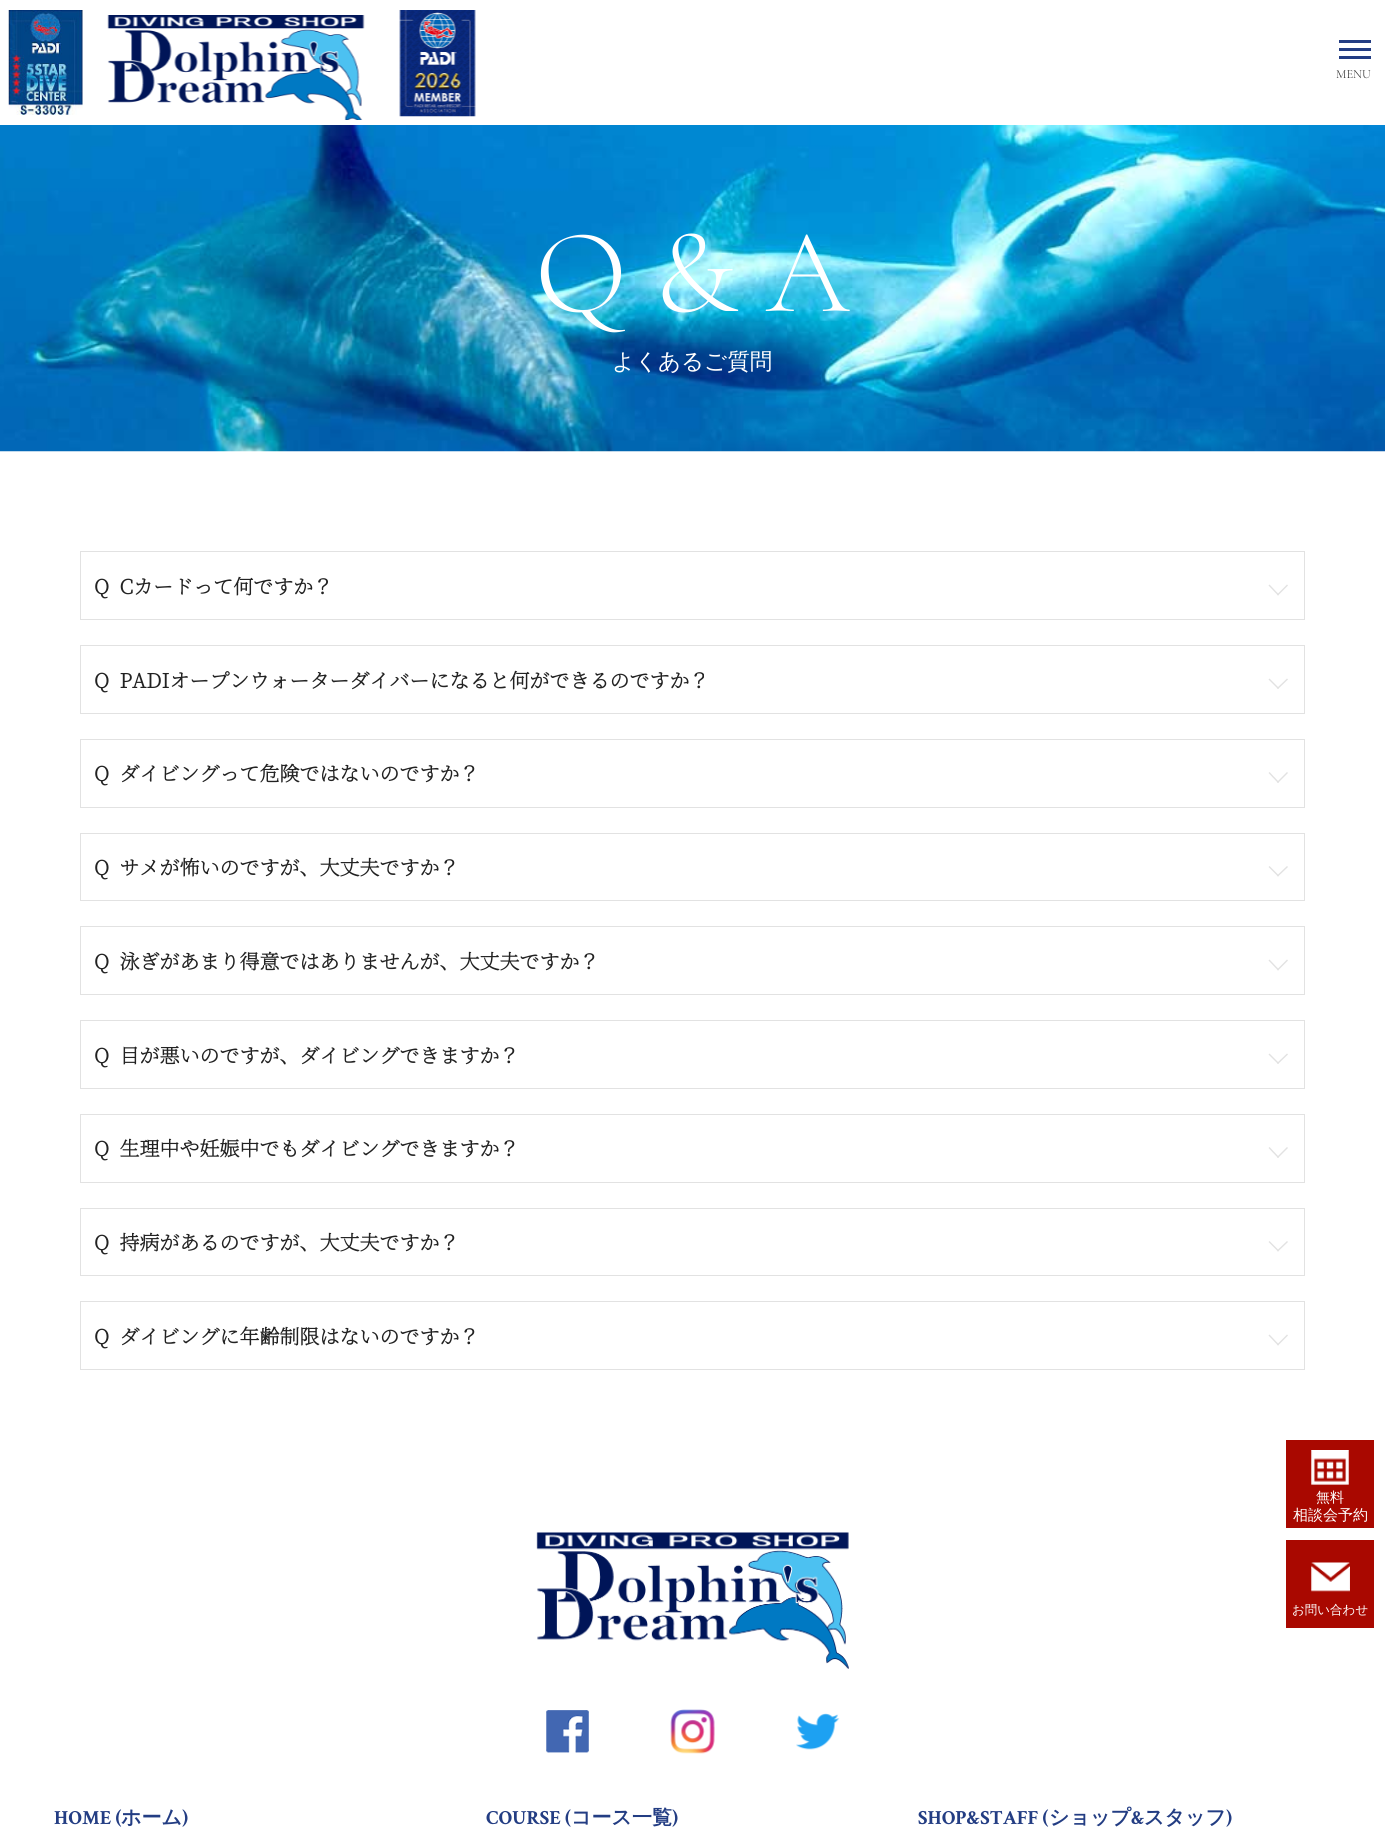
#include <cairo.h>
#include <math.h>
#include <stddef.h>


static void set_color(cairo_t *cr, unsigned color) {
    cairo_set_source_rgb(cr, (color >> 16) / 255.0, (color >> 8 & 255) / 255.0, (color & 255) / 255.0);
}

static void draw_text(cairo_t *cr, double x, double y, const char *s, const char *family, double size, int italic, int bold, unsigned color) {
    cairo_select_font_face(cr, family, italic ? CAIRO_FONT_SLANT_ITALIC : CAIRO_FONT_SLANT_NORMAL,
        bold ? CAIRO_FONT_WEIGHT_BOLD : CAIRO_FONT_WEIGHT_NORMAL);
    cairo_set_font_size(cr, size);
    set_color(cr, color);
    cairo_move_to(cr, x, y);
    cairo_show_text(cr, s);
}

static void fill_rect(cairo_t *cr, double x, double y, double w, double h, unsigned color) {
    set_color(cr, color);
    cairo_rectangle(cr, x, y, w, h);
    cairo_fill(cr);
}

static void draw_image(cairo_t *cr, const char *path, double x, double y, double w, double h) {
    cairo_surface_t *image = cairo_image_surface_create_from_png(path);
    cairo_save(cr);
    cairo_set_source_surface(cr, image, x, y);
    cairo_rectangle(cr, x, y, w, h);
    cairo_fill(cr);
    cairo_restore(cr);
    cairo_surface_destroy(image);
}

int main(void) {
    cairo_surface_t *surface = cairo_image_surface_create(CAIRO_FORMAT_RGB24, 1385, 1842);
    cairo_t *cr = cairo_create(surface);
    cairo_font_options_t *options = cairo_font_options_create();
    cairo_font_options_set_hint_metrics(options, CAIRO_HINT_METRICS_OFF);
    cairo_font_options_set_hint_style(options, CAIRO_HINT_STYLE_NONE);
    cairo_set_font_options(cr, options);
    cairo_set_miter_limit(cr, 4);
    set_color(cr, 0xFFFFFF);
    cairo_paint(cr);
    draw_image(cr, "assets/img1.png", 8, 10, 75, 105);
    draw_image(cr, "assets/img2.png", 107, 15, 258, 105);
    draw_image(cr, "assets/img3.png", 399, 10, 77, 107);
    fill_rect(cr, 1339, 48, 32, 3, 0x233D83);
    fill_rect(cr, 1339, 40, 32, 3, 0x233D83);
    fill_rect(cr, 1339, 56, 32, 3, 0x233D83);
    draw_text(cr, 1336, 78, "MENU", "Cormorant Garamond Light", 12.5, 0, 0, 0x222222);
    draw_image(cr, "assets/img4.png", 0, 125, 1385, 327);
    draw_text(cr, 535, 311, "Q & A", "Cormorant Garamond Light", 120, 0, 0, 0xFFFFFF);
    draw_text(cr, 612, 369, "よくあるご質問", "WenQuanYi Zen Hei Medium", 22.5, 0, 0, 0xFFFFFF);
    cairo_rectangle(cr, 80.5, 551.5, 1224, 68);
    set_color(cr, 0xE2E2E2);
    cairo_set_line_width(cr, 1);
    cairo_stroke(cr);
    draw_text(cr, 94, 594, "Q  Cカードって何ですか？", "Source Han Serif", 20, 0, 1, 0x222222);
    set_color(cr, 0xE2E2E2);
    cairo_new_path(cr);
    cairo_move_to(cr, 1288, 585.5);
    cairo_line_to(cr, 1278, 595.5);
    cairo_line_to(cr, 1277, 594.5);
    cairo_line_to(cr, 1287, 584.5);
    cairo_close_path(cr);
    cairo_fill(cr);
    cairo_new_path(cr);
    cairo_move_to(cr, 1279, 594.5);
    cairo_line_to(cr, 1278, 595.5);
    cairo_line_to(cr, 1268.5, 585.5);
    cairo_line_to(cr, 1269.5, 584.5);
    cairo_close_path(cr);
    cairo_fill(cr);
    cairo_rectangle(cr, 80.5, 645.5, 1224, 68);
    cairo_stroke(cr);
    draw_text(cr, 94, 688, "Q  PADIオープンウォーターダイバーになると何ができるのですか？", "Source Han Serif", 20, 0, 1, 0x222222);
    set_color(cr, 0xE2E2E2);
    cairo_new_path(cr);
    cairo_move_to(cr, 1288, 679.5);
    cairo_line_to(cr, 1278, 689);
    cairo_line_to(cr, 1277, 688);
    cairo_line_to(cr, 1287, 678.5);
    cairo_close_path(cr);
    cairo_fill(cr);
    cairo_new_path(cr);
    cairo_move_to(cr, 1279, 688);
    cairo_line_to(cr, 1278, 689);
    cairo_line_to(cr, 1268.5, 679.5);
    cairo_line_to(cr, 1269.5, 678.5);
    cairo_close_path(cr);
    cairo_fill(cr);
    cairo_rectangle(cr, 80.5, 739.5, 1224, 68);
    cairo_stroke(cr);
    draw_text(cr, 94, 781, "Q  ダイビングって危険ではないのですか？", "Source Han Serif", 20, 0, 1, 0x222222);
    set_color(cr, 0xE2E2E2);
    cairo_new_path(cr);
    cairo_move_to(cr, 1288, 773);
    cairo_line_to(cr, 1278, 783);
    cairo_line_to(cr, 1277, 782);
    cairo_line_to(cr, 1287, 772);
    cairo_close_path(cr);
    cairo_fill(cr);
    cairo_new_path(cr);
    cairo_move_to(cr, 1279, 782);
    cairo_line_to(cr, 1278, 783);
    cairo_line_to(cr, 1268.5, 773);
    cairo_line_to(cr, 1269.5, 772);
    cairo_close_path(cr);
    cairo_fill(cr);
    cairo_rectangle(cr, 80.5, 833.5, 1224, 67);
    cairo_stroke(cr);
    draw_text(cr, 94, 875, "Q  サメが怖いのですが、大丈夫ですか？", "Source Han Serif", 20, 0, 1, 0x222222);
    set_color(cr, 0xE2E2E2);
    cairo_new_path(cr);
    cairo_move_to(cr, 1288, 867);
    cairo_line_to(cr, 1278, 876.5);
    cairo_line_to(cr, 1277, 875.5);
    cairo_line_to(cr, 1287, 866);
    cairo_close_path(cr);
    cairo_fill(cr);
    cairo_new_path(cr);
    cairo_move_to(cr, 1279, 875.5);
    cairo_line_to(cr, 1278, 876.5);
    cairo_line_to(cr, 1268.5, 867);
    cairo_line_to(cr, 1269.5, 866);
    cairo_close_path(cr);
    cairo_fill(cr);
    cairo_rectangle(cr, 80.5, 926.5, 1224, 68);
    cairo_stroke(cr);
    draw_text(cr, 94, 969, "Q  泳ぎがあまり得意ではありませんが、大丈夫ですか？", "Source Han Serif", 20, 0, 1, 0x222222);
    set_color(cr, 0xE2E2E2);
    cairo_new_path(cr);
    cairo_move_to(cr, 1288, 960.5);
    cairo_line_to(cr, 1278, 970.5);
    cairo_line_to(cr, 1277, 969.5);
    cairo_line_to(cr, 1287, 959.5);
    cairo_close_path(cr);
    cairo_fill(cr);
    cairo_new_path(cr);
    cairo_move_to(cr, 1279, 969.5);
    cairo_line_to(cr, 1278, 970.5);
    cairo_line_to(cr, 1268.5, 960.5);
    cairo_line_to(cr, 1269.5, 959.5);
    cairo_close_path(cr);
    cairo_fill(cr);
    cairo_rectangle(cr, 80.5, 1020.5, 1224, 68);
    cairo_stroke(cr);
    draw_text(cr, 94, 1063, "Q  目が悪いのですが、ダイビングできますか？", "Source Han Serif", 20, 0, 1, 0x222222);
    set_color(cr, 0xE2E2E2);
    cairo_new_path(cr);
    cairo_move_to(cr, 1288, 1054.5);
    cairo_line_to(cr, 1278, 1064);
    cairo_line_to(cr, 1277, 1063);
    cairo_line_to(cr, 1287, 1053.5);
    cairo_close_path(cr);
    cairo_fill(cr);
    cairo_new_path(cr);
    cairo_move_to(cr, 1279, 1063);
    cairo_line_to(cr, 1278, 1064);
    cairo_line_to(cr, 1268.5, 1054.5);
    cairo_line_to(cr, 1269.5, 1053.5);
    cairo_close_path(cr);
    cairo_fill(cr);
    cairo_rectangle(cr, 80.5, 1114.5, 1224, 68);
    cairo_stroke(cr);
    draw_text(cr, 94, 1156, "Q  生理中や妊娠中でもダイビングできますか？", "Source Han Serif", 20, 0, 1, 0x222222);
    set_color(cr, 0xE2E2E2);
    cairo_new_path(cr);
    cairo_move_to(cr, 1288, 1148);
    cairo_line_to(cr, 1278, 1158);
    cairo_line_to(cr, 1277, 1157);
    cairo_line_to(cr, 1287, 1147);
    cairo_close_path(cr);
    cairo_fill(cr);
    cairo_new_path(cr);
    cairo_move_to(cr, 1279, 1157);
    cairo_line_to(cr, 1278, 1158);
    cairo_line_to(cr, 1268.5, 1148);
    cairo_line_to(cr, 1269.5, 1147);
    cairo_close_path(cr);
    cairo_fill(cr);
    cairo_rectangle(cr, 80.5, 1208.5, 1224, 67);
    cairo_stroke(cr);
    draw_text(cr, 94, 1250, "Q  持病があるのですが、大丈夫ですか？", "Source Han Serif", 20, 0, 1, 0x222222);
    set_color(cr, 0xE2E2E2);
    cairo_new_path(cr);
    cairo_move_to(cr, 1288, 1242);
    cairo_line_to(cr, 1278, 1251.5);
    cairo_line_to(cr, 1277, 1250.5);
    cairo_line_to(cr, 1287, 1241);
    cairo_close_path(cr);
    cairo_fill(cr);
    cairo_new_path(cr);
    cairo_move_to(cr, 1279, 1250.5);
    cairo_line_to(cr, 1278, 1251.5);
    cairo_line_to(cr, 1268.5, 1242);
    cairo_line_to(cr, 1269.5, 1241);
    cairo_close_path(cr);
    cairo_fill(cr);
    cairo_rectangle(cr, 80.5, 1301.5, 1224, 68);
    cairo_stroke(cr);
    draw_text(cr, 94, 1344, "Q  ダイビングに年齢制限はないのですか？", "Source Han Serif", 20, 0, 1, 0x222222);
    set_color(cr, 0xE2E2E2);
    cairo_new_path(cr);
    cairo_move_to(cr, 1288, 1335.5);
    cairo_line_to(cr, 1278, 1345.5);
    cairo_line_to(cr, 1277, 1344.5);
    cairo_line_to(cr, 1287, 1334.5);
    cairo_close_path(cr);
    cairo_fill(cr);
    cairo_new_path(cr);
    cairo_move_to(cr, 1279, 1344.5);
    cairo_line_to(cr, 1278, 1345.5);
    cairo_line_to(cr, 1268.5, 1335.5);
    cairo_line_to(cr, 1269.5, 1334.5);
    cairo_close_path(cr);
    cairo_fill(cr);
    fill_rect(cr, 1286, 1440, 88, 88, 0xA90800);
    draw_image(cr, "assets/img5.png", 1311, 1450, 38, 35);
    draw_text(cr, 1316, 1502, "無料", "WenQuanYi Zen Hei Medium", 14, 0, 0, 0xFFFFFF);
    draw_text(cr, 1293, 1520, "相談会予約", "WenQuanYi Zen Hei Medium", 15, 0, 0, 0xFFFFFF);
    fill_rect(cr, 1286, 1540, 88, 88, 0xA90800);
    draw_image(cr, "assets/img6.png", 1311, 1562, 39, 30);
    draw_text(cr, 1292, 1614, "お問い合わせ", "WenQuanYi Zen Hei Medium", 12.5, 0, 0, 0xFFFFFF);
    draw_image(cr, "assets/img7.png", 536, 1532, 313, 137);
    draw_image(cr, "assets/img8.png", 546, 1710, 43, 43);
    draw_image(cr, "assets/img9.png", 670, 1709, 45, 45);
    draw_image(cr, "assets/img10.png", 796, 1713, 44, 37);
    draw_text(cr, 54, 1824, "HOME (", "Crimson Text", 20, 0, 1, 0x233D83);
    draw_text(cr, 121, 1824, "ホーム", "WenQuanYi Zen Hei", 20, 0, 1, 0x233D83);
    draw_text(cr, 182, 1824, ")", "Crimson Text", 20, 0, 1, 0x233D83);
    draw_text(cr, 486, 1824, "COURSE (", "Crimson Text", 20, 0, 1, 0x233D83);
    draw_text(cr, 571, 1824, "コース一覧", "WenQuanYi Zen Hei", 20, 0, 1, 0x233D83);
    draw_text(cr, 672, 1824, ")", "Crimson Text", 20, 0, 1, 0x233D83);
    draw_text(cr, 918, 1824, "SHOP&STAFF (", "Crimson Text", 20, 0, 1, 0x233D83);
    draw_text(cr, 1049, 1824, "ショップ", "WenQuanYi Zen Hei", 20, 0, 1, 0x233D83);
    draw_text(cr, 1131, 1824, "&", "Crimson Text", 20, 0, 1, 0x233D83);
    draw_text(cr, 1144, 1824, "スタッフ", "WenQuanYi Zen Hei", 20, 0, 1, 0x233D83);
    draw_text(cr, 1226, 1824, ")", "Crimson Text", 20, 0, 1, 0x233D83);
    cairo_surface_write_to_png(surface, "output.png");
    cairo_font_options_destroy(options);
    cairo_destroy(cr);
    cairo_surface_destroy(surface);
    return 0;
}
